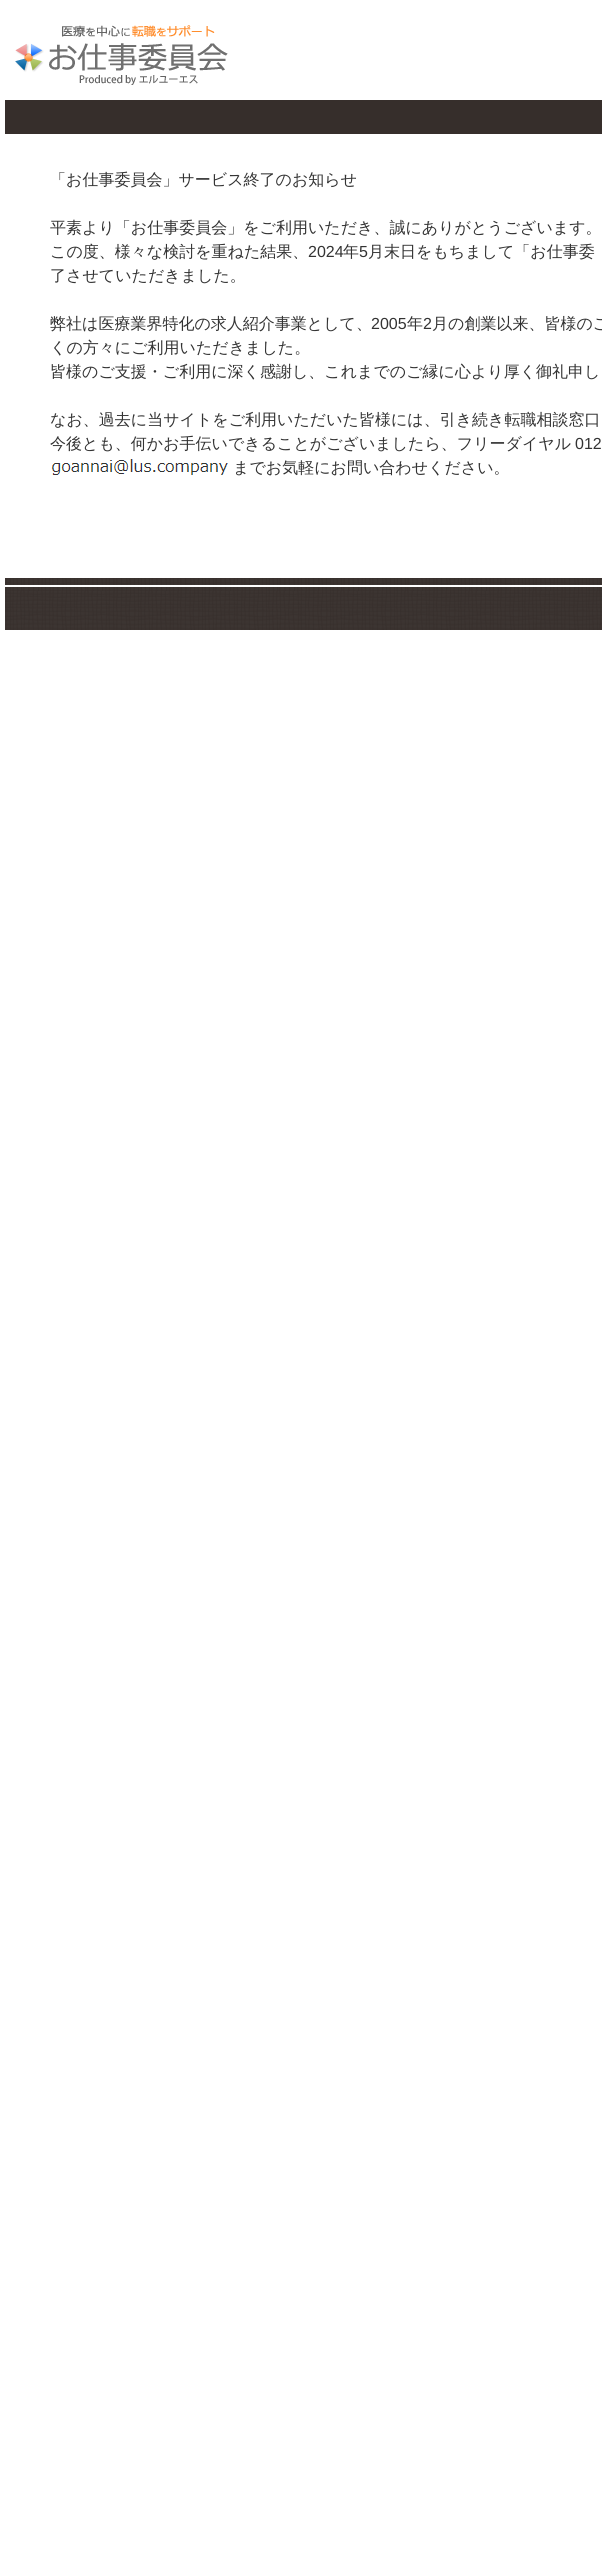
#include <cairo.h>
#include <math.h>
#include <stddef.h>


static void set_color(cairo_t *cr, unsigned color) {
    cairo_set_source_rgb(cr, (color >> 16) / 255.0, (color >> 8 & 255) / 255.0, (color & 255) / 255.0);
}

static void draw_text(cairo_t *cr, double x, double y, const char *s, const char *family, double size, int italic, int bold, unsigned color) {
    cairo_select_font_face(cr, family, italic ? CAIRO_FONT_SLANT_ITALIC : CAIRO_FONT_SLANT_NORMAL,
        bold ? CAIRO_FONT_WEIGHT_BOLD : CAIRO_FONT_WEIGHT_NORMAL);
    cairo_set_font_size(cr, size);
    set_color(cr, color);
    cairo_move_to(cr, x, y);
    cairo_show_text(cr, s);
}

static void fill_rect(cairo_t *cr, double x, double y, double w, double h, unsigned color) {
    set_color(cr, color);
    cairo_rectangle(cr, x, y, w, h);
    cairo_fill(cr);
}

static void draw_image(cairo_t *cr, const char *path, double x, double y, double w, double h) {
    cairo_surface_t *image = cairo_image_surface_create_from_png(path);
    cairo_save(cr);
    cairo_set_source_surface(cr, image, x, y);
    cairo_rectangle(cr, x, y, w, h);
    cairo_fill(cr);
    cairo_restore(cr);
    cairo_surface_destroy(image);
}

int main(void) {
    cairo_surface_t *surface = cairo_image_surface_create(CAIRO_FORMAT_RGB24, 602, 2563);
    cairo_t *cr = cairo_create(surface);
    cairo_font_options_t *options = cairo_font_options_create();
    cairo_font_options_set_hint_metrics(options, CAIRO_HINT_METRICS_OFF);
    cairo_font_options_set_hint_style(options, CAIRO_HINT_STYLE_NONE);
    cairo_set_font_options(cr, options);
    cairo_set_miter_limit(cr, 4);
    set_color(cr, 0xFFFFFF);
    cairo_paint(cr);
    draw_image(cr, "assets/img1.png", 15, 25, 213, 60);
    fill_rect(cr, 5, 100, 597, 34, 0x362E2B);
    draw_text(cr, 50, 185, "「お仕事委員会」サービス終了のお知らせ", "WenQuanYi Zen Hei Medium", 16, 0, 0, 0x333333);
    draw_text(cr, 50, 233, "平素より「お仕事委員会」をご利用いただき、誠にありがとうございます。", "WenQuanYi Zen Hei Medium", 16, 0, 0, 0x333333);
    draw_text(cr, 50, 257, "この度、様々な検討を重ねた結果、", "WenQuanYi Zen Hei Medium", 16, 0, 0, 0x333333);
    draw_text(cr, 308, 257, "2024", "Liberation Sans", 16, 0, 0, 0x333333);
    draw_text(cr, 343, 257, "年", "WenQuanYi Zen Hei Medium", 16, 0, 0, 0x333333);
    draw_text(cr, 359, 257, "5", "Liberation Sans", 16, 0, 0, 0x333333);
    draw_text(cr, 368, 257, "月末日をもちまして「お仕事委", "WenQuanYi Zen Hei Medium", 16, 0, 0, 0x333333);
    draw_text(cr, 50, 281, "了させていただきました。", "WenQuanYi Zen Hei Medium", 16, 0, 0, 0x333333);
    draw_text(cr, 50, 329, "弊社は医療業界特化の求人紹介事業として、", "WenQuanYi Zen Hei Medium", 16, 0, 0, 0x333333);
    draw_text(cr, 371, 329, "2005", "Liberation Sans", 16, 0, 0, 0x333333);
    draw_text(cr, 407, 329, "年", "WenQuanYi Zen Hei Medium", 16, 0, 0, 0x333333);
    draw_text(cr, 423, 329, "2", "Liberation Sans", 16, 0, 0, 0x333333);
    draw_text(cr, 432, 329, "月の創業以来、皆様のご", "WenQuanYi Zen Hei Medium", 16, 0, 0, 0x333333);
    draw_text(cr, 50, 353, "くの方々にご利用いただきました。", "WenQuanYi Zen Hei Medium", 16, 0, 0, 0x333333);
    draw_text(cr, 50, 377, "皆様のご支援・ご利用に深く感謝し、これまでのご縁に心より厚く御礼申し", "WenQuanYi Zen Hei Medium", 16, 0, 0, 0x333333);
    draw_text(cr, 50, 425, "なお、過去に当サイトをご利用いただいた皆様には、引き続き転職相談窓口", "WenQuanYi Zen Hei Medium", 16, 0, 0, 0x333333);
    draw_text(cr, 50, 449, "今後とも、何かお手伝いできることがございましたら、フリーダイヤル", "WenQuanYi Zen Hei Medium", 16, 0, 0, 0x333333);
    draw_text(cr, 575, 449, "012", "Liberation Sans", 16, 0, 0, 0x333333);
    draw_image(cr, "assets/img2.png", 51, 459, 177, 16);
    draw_text(cr, 233, 473, "までお気軽にお問い合わせください。", "WenQuanYi Zen Hei Medium", 16, 0, 0, 0x333333);
    draw_image(cr, "assets/img3.png", 5, 591, 597, 39);
    draw_image(cr, "assets/img4.png", 5, 578, 597, 13);
    cairo_surface_write_to_png(surface, "output.png");
    cairo_font_options_destroy(options);
    cairo_destroy(cr);
    cairo_surface_destroy(surface);
    return 0;
}
